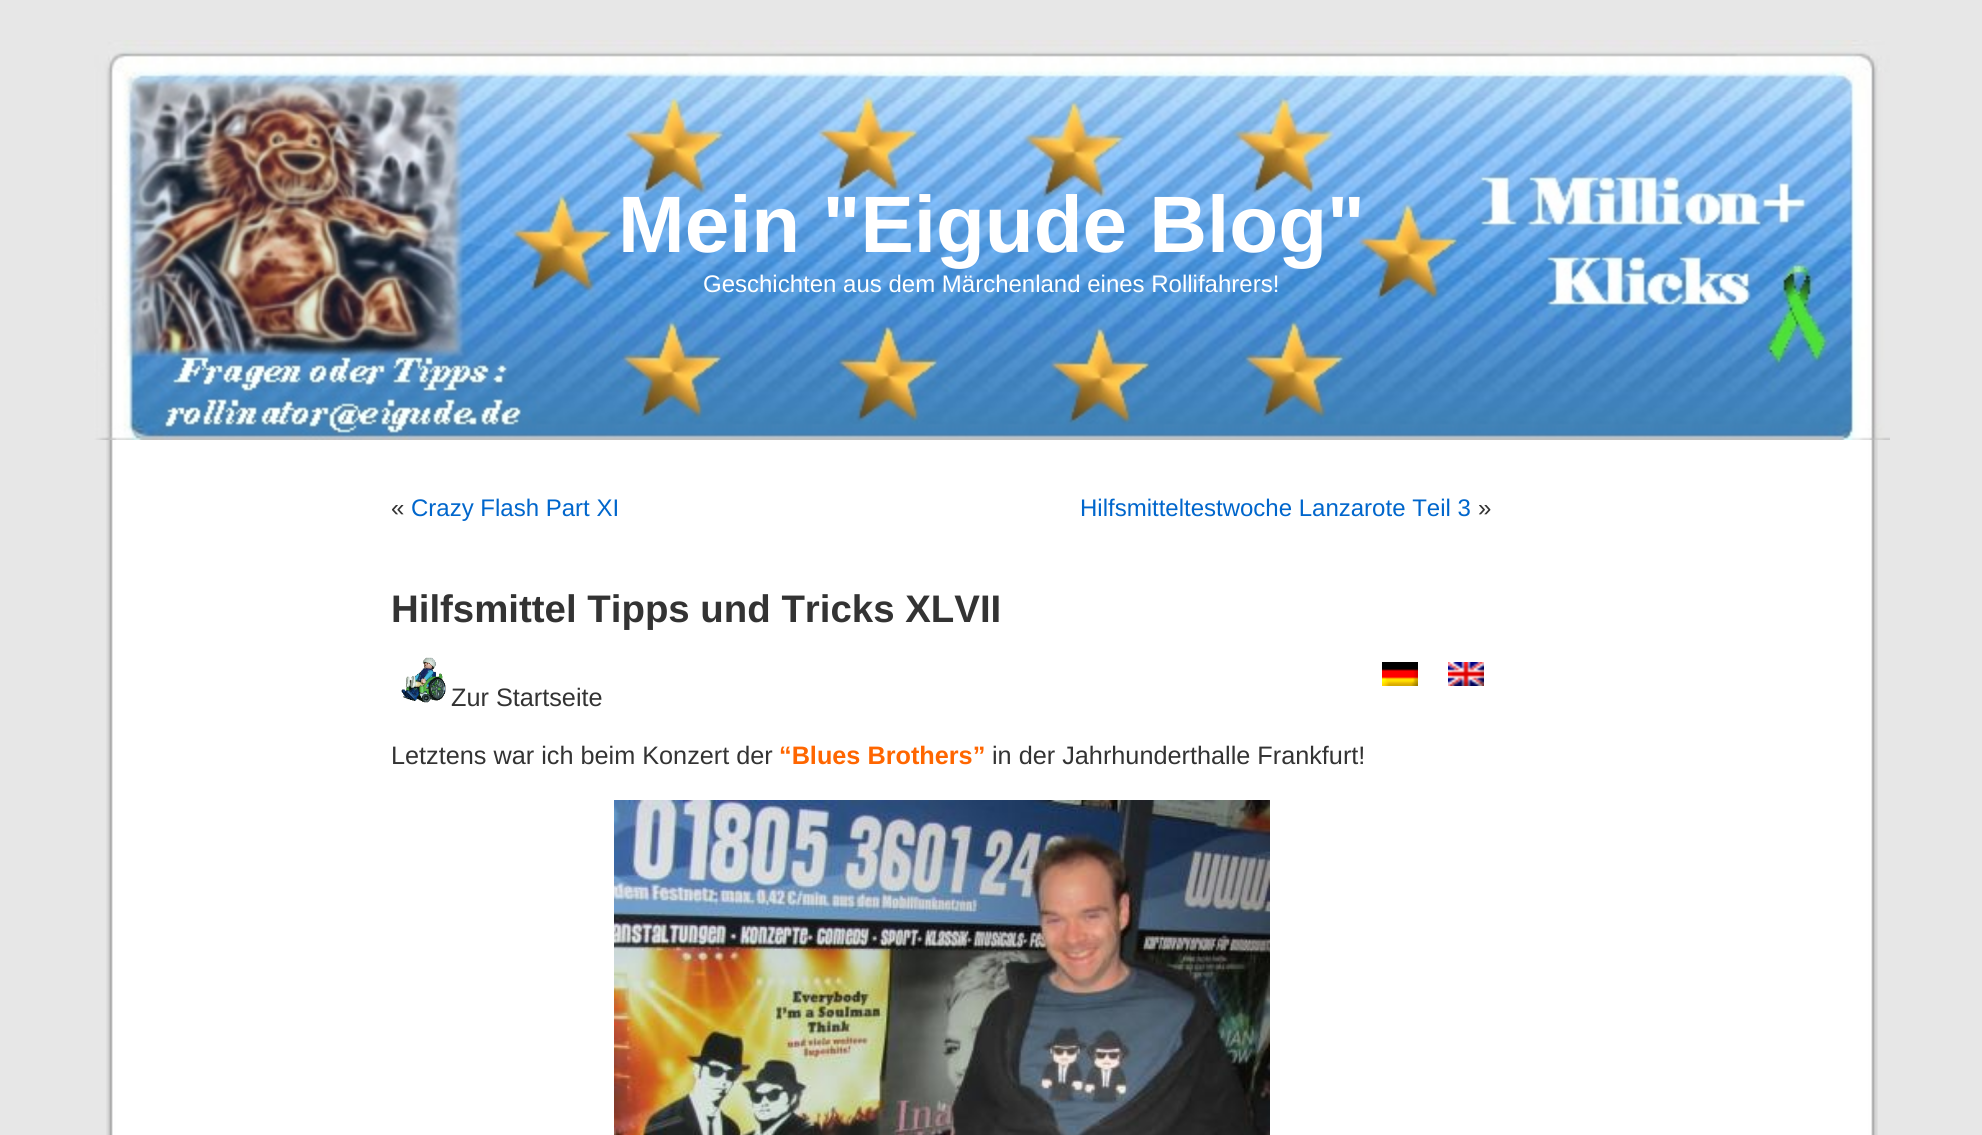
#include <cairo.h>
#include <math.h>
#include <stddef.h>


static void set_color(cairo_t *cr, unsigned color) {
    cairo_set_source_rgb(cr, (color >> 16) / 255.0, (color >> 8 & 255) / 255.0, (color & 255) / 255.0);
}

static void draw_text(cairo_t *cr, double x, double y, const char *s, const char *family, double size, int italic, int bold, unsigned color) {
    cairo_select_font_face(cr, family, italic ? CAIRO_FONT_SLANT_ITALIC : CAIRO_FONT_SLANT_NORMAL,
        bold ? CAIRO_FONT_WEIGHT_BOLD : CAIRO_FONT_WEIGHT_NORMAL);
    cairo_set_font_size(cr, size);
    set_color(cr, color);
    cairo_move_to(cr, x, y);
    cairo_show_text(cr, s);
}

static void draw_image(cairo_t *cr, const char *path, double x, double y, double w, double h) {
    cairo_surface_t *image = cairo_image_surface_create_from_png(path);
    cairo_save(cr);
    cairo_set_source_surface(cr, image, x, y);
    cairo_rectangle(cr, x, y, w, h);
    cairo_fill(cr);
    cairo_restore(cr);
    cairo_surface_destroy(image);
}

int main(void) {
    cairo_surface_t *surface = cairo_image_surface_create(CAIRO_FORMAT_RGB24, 1982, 1135);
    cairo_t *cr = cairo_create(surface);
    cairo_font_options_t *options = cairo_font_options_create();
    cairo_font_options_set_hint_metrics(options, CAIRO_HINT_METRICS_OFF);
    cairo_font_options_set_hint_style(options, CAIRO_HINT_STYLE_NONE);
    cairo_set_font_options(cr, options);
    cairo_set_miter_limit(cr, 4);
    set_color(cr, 0xE7E7E7);
    cairo_paint(cr);
    draw_image(cr, "assets/img1.png", 106, 440, 1772, 695);
    draw_image(cr, "assets/img2.png", 94, 40, 1796, 400);
    draw_text(cr, 618, 252, "Mein \"Eigude Blog\"", "Liberation Sans", 80, 0, 1, 0xFFFFFF);
    draw_text(cr, 703, 292, "Geschichten aus dem Märchenland eines Rollifahrers!", "Liberation Sans", 24, 0, 0, 0xFFFFFF);
    draw_text(cr, 391, 516, "«", "Liberation Sans", 24, 0, 0, 0x333333);
    draw_text(cr, 411, 516, "Crazy Flash Part XI", "Liberation Sans", 24, 0, 0, 0x0066CC);
    draw_text(cr, 1080, 516, "Hilfsmitteltestwoche Lanzarote Teil 3", "Liberation Sans", 24, 0, 0, 0x0066CC);
    draw_text(cr, 1478, 516, "»", "Liberation Sans", 24, 0, 0, 0x333333);
    draw_text(cr, 391, 622, "Hilfsmittel Tipps und Tricks XLVII", "Liberation Sans", 38.4, 0, 1, 0x333333);
    draw_image(cr, "assets/img3.png", 401, 657, 45, 46);
    draw_image(cr, "assets/img4.png", 1382, 662, 36, 24);
    draw_image(cr, "assets/img5.png", 1448, 662, 36, 24);
    draw_text(cr, 451, 706, "Zur Startseite", "Liberation Sans", 25.25, 0, 0, 0x333333);
    draw_text(cr, 391, 764, "Letztens war ich beim Konzert der", "Liberation Sans", 25.25, 0, 0, 0x333333);
    draw_text(cr, 779, 764, "“Blues Brothers”", "Liberation Sans", 25.25, 0, 1, 0xFF6600);
    draw_text(cr, 992, 764, "in der Jahrhunderthalle Frankfurt!", "Liberation Sans", 25.25, 0, 0, 0x333333);
    draw_image(cr, "assets/img6.png", 614, 800, 656, 335);
    cairo_surface_write_to_png(surface, "output.png");
    cairo_font_options_destroy(options);
    cairo_destroy(cr);
    cairo_surface_destroy(surface);
    return 0;
}
